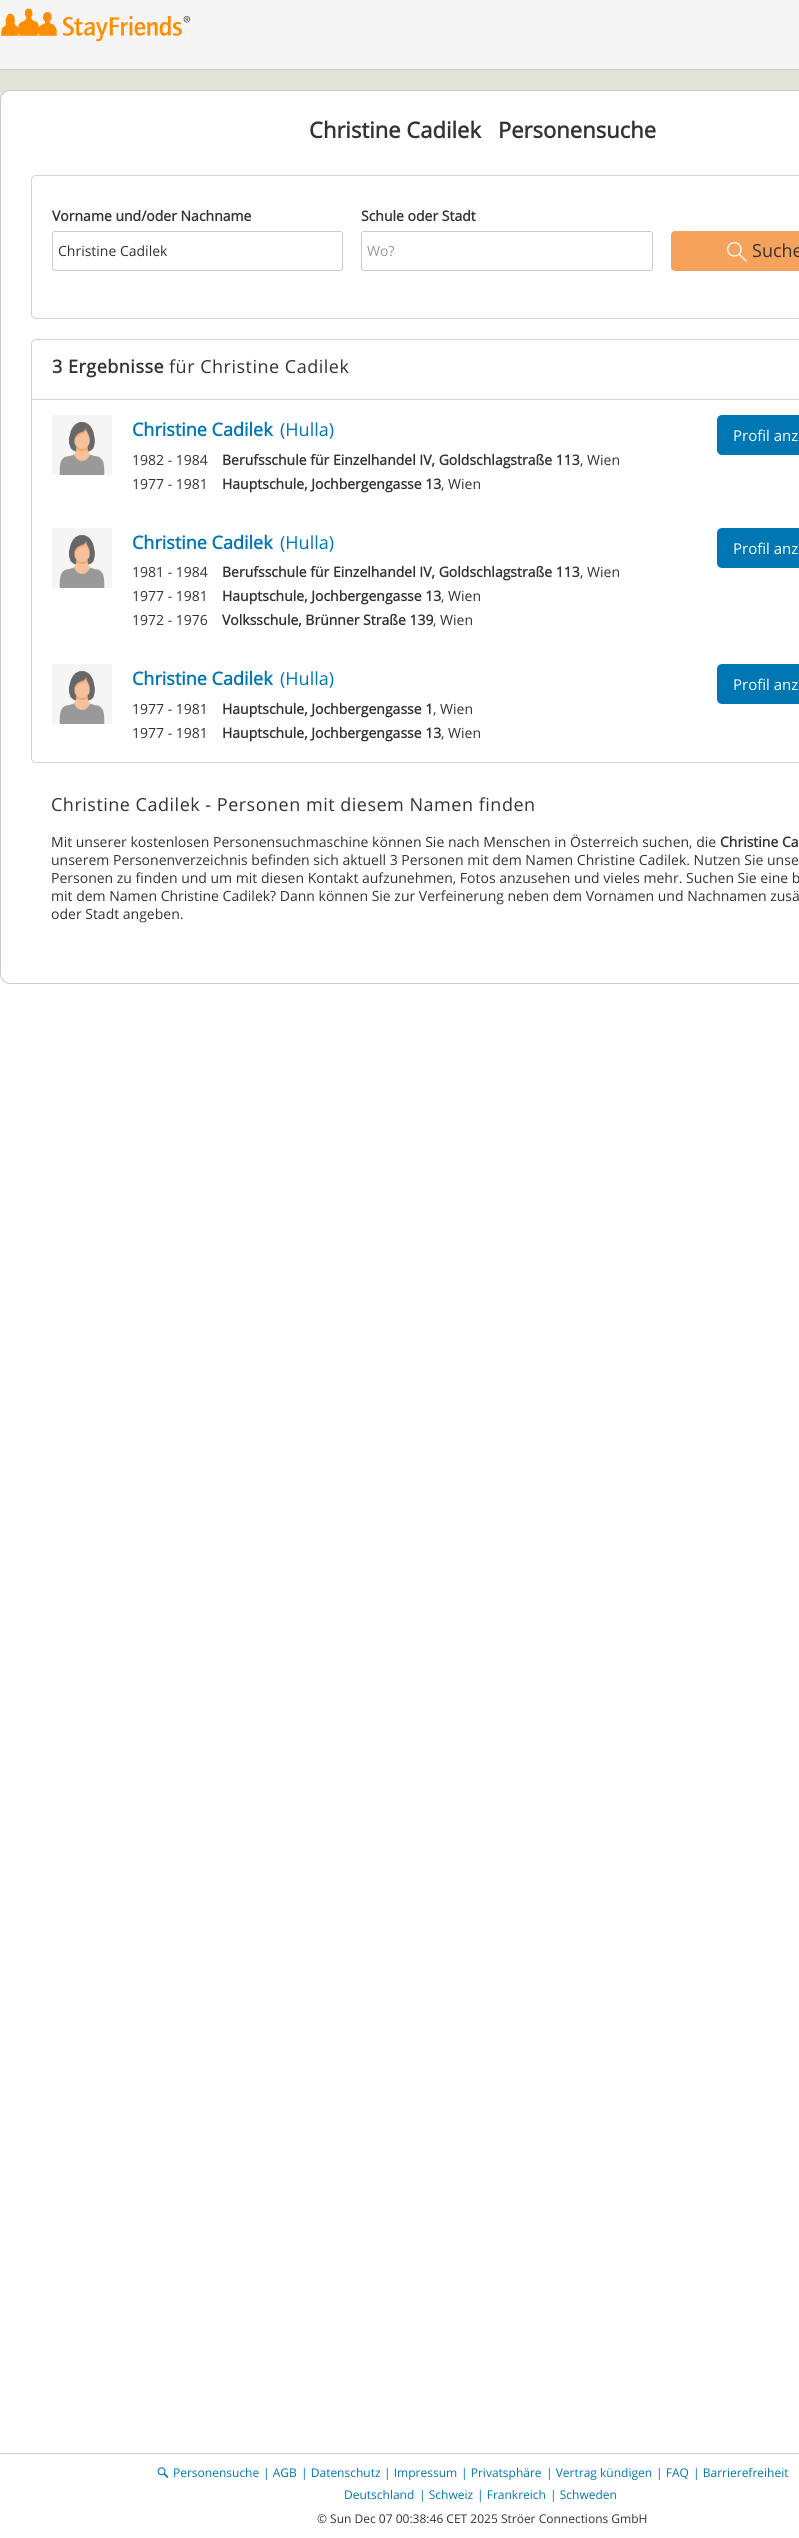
#include <cairo.h>
#include <math.h>
#include <stddef.h>


static void set_color(cairo_t *cr, unsigned color) {
    cairo_set_source_rgb(cr, (color >> 16) / 255.0, (color >> 8 & 255) / 255.0, (color & 255) / 255.0);
}

static void draw_text(cairo_t *cr, double x, double y, const char *s, const char *family, double size, int italic, int bold, unsigned color) {
    cairo_select_font_face(cr, family, italic ? CAIRO_FONT_SLANT_ITALIC : CAIRO_FONT_SLANT_NORMAL,
        bold ? CAIRO_FONT_WEIGHT_BOLD : CAIRO_FONT_WEIGHT_NORMAL);
    cairo_set_font_size(cr, size);
    set_color(cr, color);
    cairo_move_to(cr, x, y);
    cairo_show_text(cr, s);
}

static void draw_spaced(cairo_t *cr, double x, double y, const char *s, double letter, double word) {
    cairo_move_to(cr, x, y);
    while (*s) {
        char ch[5] = {0};
        int n = 0;
        do ch[n++] = *s++; while ((*s & 0xC0) == 0x80);
        cairo_show_text(cr, ch);
        cairo_rel_move_to(cr, letter + word * (*ch == ' '), 0);
    }
}

static void fill_rect(cairo_t *cr, double x, double y, double w, double h, unsigned color) {
    set_color(cr, color);
    cairo_rectangle(cr, x, y, w, h);
    cairo_fill(cr);
}

static void rounded_rect(cairo_t *cr, double x, double y, double w, double h, double r) {
    cairo_new_sub_path(cr);
    cairo_arc(cr, x + w - r, y + h - r, r, 0, M_PI / 2);
    cairo_arc(cr, x + r, y + h - r, r, M_PI / 2, M_PI);
    cairo_arc(cr, x + r, y + r, r, M_PI, 1.5 * M_PI);
    cairo_arc(cr, x + w - r, y + r, r, 1.5 * M_PI, 2 * M_PI);
    cairo_close_path(cr);
}

static void draw_image(cairo_t *cr, const char *path, double x, double y, double w, double h) {
    cairo_surface_t *image = cairo_image_surface_create_from_png(path);
    cairo_save(cr);
    cairo_set_source_surface(cr, image, x, y);
    cairo_rectangle(cr, x, y, w, h);
    cairo_fill(cr);
    cairo_restore(cr);
    cairo_surface_destroy(image);
}

int main(void) {
    cairo_surface_t *surface = cairo_image_surface_create(CAIRO_FORMAT_RGB24, 799, 2538);
    cairo_t *cr = cairo_create(surface);
    cairo_font_options_t *options = cairo_font_options_create();
    cairo_font_options_set_hint_metrics(options, CAIRO_HINT_METRICS_OFF);
    cairo_font_options_set_hint_style(options, CAIRO_HINT_STYLE_NONE);
    cairo_set_font_options(cr, options);
    cairo_set_miter_limit(cr, 4);
    cairo_pattern_t *gradient;
    set_color(cr, 0xFFFFFF);
    cairo_paint(cr);
    gradient = cairo_pattern_create_linear(470, 0, 470, 2538);
    cairo_pattern_add_color_stop_rgba(gradient, 0.03, 0.894, 0.89, 0.847, 1);
    cairo_pattern_add_color_stop_rgba(gradient, 0.28, 0.996, 0.996, 0.996, 1);
    cairo_set_source(cr, gradient);
    cairo_pattern_destroy(gradient);
    cairo_rectangle(cr, 0, 70, 799, 616);
    cairo_fill(cr);
    fill_rect(cr, 0, 0, 799, 69, 0xF5F5F5);
    fill_rect(cr, 0, 69, 799, 1, 0xCCCCCC);
    draw_image(cr, "assets/img1.png", 1, 8, 190, 33);
    set_color(cr, 0xFFFFFF);
    rounded_rect(cr, 0.5, 90.5, 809, 893, 9.5);
    cairo_fill_preserve(cr);
    set_color(cr, 0xCCCCCC);
    cairo_set_line_width(cr, 1);
    cairo_stroke(cr);
    draw_text(cr, 309, 138, "Christine Cadilek", "Open Sans", 22, 0, 1, 0x333333);
    draw_text(cr, 498, 138, "Personensuche", "Open Sans", 22, 0, 1, 0x333333);
    rounded_rect(cr, 31.5, 175.5, 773, 143, 4.5);
    set_color(cr, 0xD3D3D3);
    cairo_stroke(cr);
    draw_text(cr, 52, 221, "Vorname und/oder Nachname", "Open Sans", 14, 0, 1, 0x333333);
    rounded_rect(cr, 52.5, 231.5, 290, 39, 2.5);
    set_color(cr, 0xCCCCCC);
    cairo_stroke(cr);
    draw_text(cr, 58, 256, "Christine Cadilek", "Open Sans", 14, 0, 0, 0x333333);
    draw_text(cr, 361, 221, "Schule oder Stadt", "Open Sans", 14, 0, 1, 0x333333);
    rounded_rect(cr, 361.5, 231.5, 291, 39, 2.5);
    set_color(cr, 0xCCCCCC);
    cairo_stroke(cr);
    draw_text(cr, 367, 256, "Wo?", "Open Sans", 14, 0, 0, 0x999999);
    set_color(cr, 0xF5A25D);
    rounded_rect(cr, 671, 231, 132, 40, 4);
    cairo_fill(cr);
    draw_image(cr, "assets/img2.png", 727, 242, 20, 20);
    draw_text(cr, 752, 257, "Suche", "Open Sans", 18, 0, 0, 0x333333);
    rounded_rect(cr, 31.5, 339.5, 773, 423, 4.5);
    set_color(cr, 0xD3D3D3);
    cairo_stroke(cr);
    fill_rect(cr, 32, 399, 767, 1, 0xD3D3D3);
    cairo_select_font_face(cr, "Open Sans", CAIRO_FONT_SLANT_NORMAL, CAIRO_FONT_WEIGHT_BOLD);
    set_color(cr, 0x333333);
    draw_spaced(cr, 52, 373, "3 Ergebnisse", 0.5, 0);
    cairo_select_font_face(cr, "Open Sans", CAIRO_FONT_SLANT_NORMAL, CAIRO_FONT_WEIGHT_NORMAL);
    draw_spaced(cr, 169, 373, "für Christine Cadilek", 0.5, 0);
    draw_image(cr, "assets/img3.png", 52, 415, 60, 60);
    draw_text(cr, 132, 436, "Christine Cadilek", "Open Sans", 18, 0, 1, 0x0077B2);
    draw_text(cr, 280, 436, "(Hulla)", "Open Sans", 18, 0, 0, 0x0077B2);
    set_color(cr, 0x0077B3);
    rounded_rect(cr, 717, 415, 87, 40, 5);
    cairo_fill(cr);
    draw_text(cr, 733, 441, "Profil anz", "Open Sans", 15, 0, 0, 0xFFFFFF);
    draw_text(cr, 132, 465, "1982 - 1984", "Open Sans", 14, 0, 0, 0x333333);
    draw_text(cr, 222, 465, "Berufsschule für Einzelhandel IV, Goldschlagstraße 113", "Open Sans", 14, 0, 1, 0x333333);
    draw_text(cr, 580, 465, ", Wien", "Open Sans", 14, 0, 0, 0x333333);
    draw_text(cr, 132, 489, "1977 - 1981", "Open Sans", 14, 0, 0, 0x333333);
    draw_text(cr, 222, 489, "Hauptschule, Jochbergengasse 13", "Open Sans", 14, 0, 1, 0x333333);
    draw_text(cr, 441, 489, ", Wien", "Open Sans", 14, 0, 0, 0x333333);
    draw_image(cr, "assets/img4.png", 52, 528, 60, 60);
    draw_text(cr, 132, 549, "Christine Cadilek", "Open Sans", 18, 0, 1, 0x0077B2);
    draw_text(cr, 280, 549, "(Hulla)", "Open Sans", 18, 0, 0, 0x0077B2);
    set_color(cr, 0x0077B3);
    rounded_rect(cr, 717, 528, 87, 40, 5);
    cairo_fill(cr);
    draw_text(cr, 733, 554, "Profil anz", "Open Sans", 15, 0, 0, 0xFFFFFF);
    draw_text(cr, 132, 577, "1981 - 1984", "Open Sans", 14, 0, 0, 0x333333);
    draw_text(cr, 222, 577, "Berufsschule für Einzelhandel IV, Goldschlagstraße 113", "Open Sans", 14, 0, 1, 0x333333);
    draw_text(cr, 580, 577, ", Wien", "Open Sans", 14, 0, 0, 0x333333);
    draw_text(cr, 132, 601, "1977 - 1981", "Open Sans", 14, 0, 0, 0x333333);
    draw_text(cr, 222, 601, "Hauptschule, Jochbergengasse 13", "Open Sans", 14, 0, 1, 0x333333);
    draw_text(cr, 441, 601, ", Wien", "Open Sans", 14, 0, 0, 0x333333);
    draw_text(cr, 132, 625, "1972 - 1976", "Open Sans", 14, 0, 0, 0x333333);
    draw_text(cr, 222, 625, "Volksschule, Brünner Straße 139", "Open Sans", 14, 0, 1, 0x333333);
    draw_text(cr, 433, 625, ", Wien", "Open Sans", 14, 0, 0, 0x333333);
    draw_image(cr, "assets/img4.png", 52, 664, 60, 60);
    draw_text(cr, 132, 685, "Christine Cadilek", "Open Sans", 18, 0, 1, 0x0077B2);
    draw_text(cr, 280, 685, "(Hulla)", "Open Sans", 18, 0, 0, 0x0077B2);
    set_color(cr, 0x0077B3);
    rounded_rect(cr, 717, 664, 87, 40, 5);
    cairo_fill(cr);
    draw_text(cr, 733, 690, "Profil anz", "Open Sans", 15, 0, 0, 0xFFFFFF);
    draw_text(cr, 132, 714, "1977 - 1981", "Open Sans", 14, 0, 0, 0x333333);
    draw_text(cr, 222, 714, "Hauptschule, Jochbergengasse 1", "Open Sans", 14, 0, 1, 0x333333);
    draw_text(cr, 433, 714, ", Wien", "Open Sans", 14, 0, 0, 0x333333);
    draw_text(cr, 132, 738, "1977 - 1981", "Open Sans", 14, 0, 0, 0x333333);
    draw_text(cr, 222, 738, "Hauptschule, Jochbergengasse 13", "Open Sans", 14, 0, 1, 0x333333);
    draw_text(cr, 441, 738, ", Wien", "Open Sans", 14, 0, 0, 0x333333);
    cairo_set_font_size(cr, 18);
    draw_spaced(cr, 51, 811, "Christine Cadilek - Personen mit diesem Namen finden", 0.5, 0);
    draw_text(cr, 51, 847, "Mit unserer kostenlosen Personensuchmaschine können Sie nach Menschen in Österreich suchen, die", "Open Sans", 14, 0, 0, 0x333333);
    draw_text(cr, 720, 847, "Christine Ca", "Open Sans", 14, 0, 1, 0x333333);
    draw_text(cr, 51, 865, "unserem Personenverzeichnis befinden sich aktuell 3 Personen mit dem Namen Christine Cadilek. Nutzen Sie unse", "Open Sans", 14, 0, 0, 0x333333);
    draw_text(cr, 51, 883, "Personen zu finden und um mit diesen Kontakt aufzunehmen, Fotos anzusehen und vieles mehr. Suchen Sie eine b", "Open Sans", 14, 0, 0, 0x333333);
    draw_text(cr, 51, 901, "mit dem Namen Christine Cadilek? Dann können Sie zur Verfeinerung neben dem Vornamen und Nachnamen zusä", "Open Sans", 14, 0, 0, 0x333333);
    draw_text(cr, 51, 919, "oder Stadt angeben.", "Open Sans", 14, 0, 0, 0x333333);
    fill_rect(cr, 0, 2453, 799, 1, 0xCCCCCC);
    draw_image(cr, "assets/img5.png", 157, 2467, 12, 12);
    draw_text(cr, 173, 2477, "Personensuche", "Open Sans", 12, 0, 0, 0x0077B2);
    draw_text(cr, 263, 2477, "| AGB", "Open Sans", 12, 0, 0, 0x0077B2);
    draw_text(cr, 301, 2477, "| Datenschutz", "Open Sans", 12, 0, 0, 0x0077B2);
    draw_text(cr, 384, 2477, "| Impressum", "Open Sans", 12, 0, 0, 0x0077B2);
    draw_text(cr, 461, 2477, "| Privatsphäre", "Open Sans", 12, 0, 0, 0x0077B2);
    draw_text(cr, 546, 2477, "| Vertrag kündigen", "Open Sans", 12, 0, 0, 0x0077B2);
    draw_text(cr, 656, 2477, "| FAQ", "Open Sans", 12, 0, 0, 0x0077B2);
    draw_text(cr, 693, 2477, "| Barrierefreiheit", "Open Sans", 12, 0, 0, 0x0077B2);
    draw_text(cr, 344, 2499, "Deutschland", "Open Sans", 12, 0, 0, 0x0077B2);
    draw_text(cr, 419, 2499, "| Schweiz", "Open Sans", 12, 0, 0, 0x0077B2);
    draw_text(cr, 477, 2499, "| Frankreich", "Open Sans", 12, 0, 0, 0x0077B2);
    draw_text(cr, 550, 2499, "| Schweden", "Open Sans", 12, 0, 0, 0x0077B2);
    draw_text(cr, 317, 2523, "© Sun Dec 07 00:38:46 CET 2025 Ströer Connections GmbH", "Open Sans", 12, 0, 0, 0x333333);
    cairo_surface_write_to_png(surface, "output.png");
    cairo_font_options_destroy(options);
    cairo_destroy(cr);
    cairo_surface_destroy(surface);
    return 0;
}
